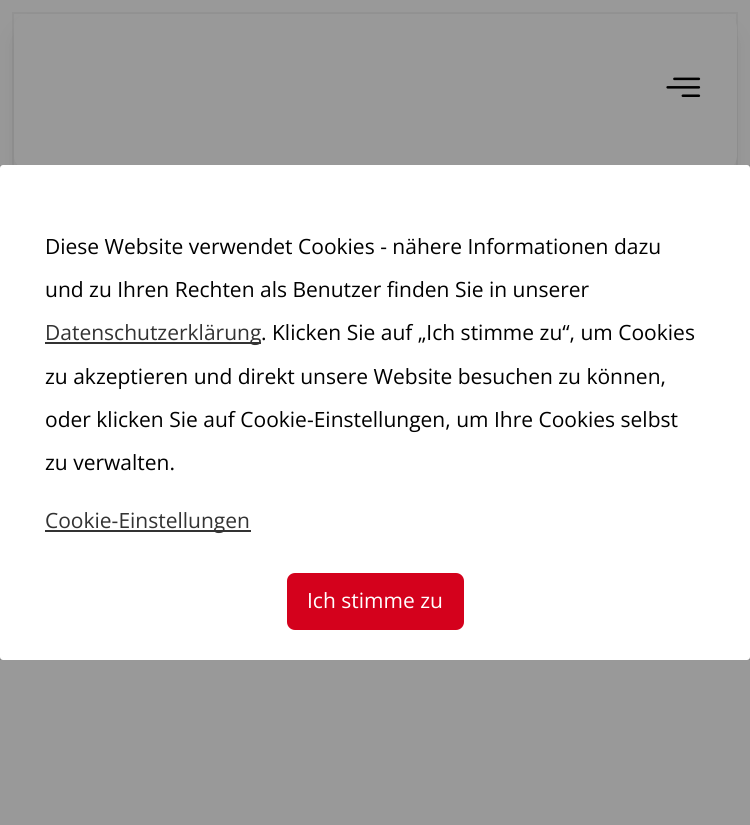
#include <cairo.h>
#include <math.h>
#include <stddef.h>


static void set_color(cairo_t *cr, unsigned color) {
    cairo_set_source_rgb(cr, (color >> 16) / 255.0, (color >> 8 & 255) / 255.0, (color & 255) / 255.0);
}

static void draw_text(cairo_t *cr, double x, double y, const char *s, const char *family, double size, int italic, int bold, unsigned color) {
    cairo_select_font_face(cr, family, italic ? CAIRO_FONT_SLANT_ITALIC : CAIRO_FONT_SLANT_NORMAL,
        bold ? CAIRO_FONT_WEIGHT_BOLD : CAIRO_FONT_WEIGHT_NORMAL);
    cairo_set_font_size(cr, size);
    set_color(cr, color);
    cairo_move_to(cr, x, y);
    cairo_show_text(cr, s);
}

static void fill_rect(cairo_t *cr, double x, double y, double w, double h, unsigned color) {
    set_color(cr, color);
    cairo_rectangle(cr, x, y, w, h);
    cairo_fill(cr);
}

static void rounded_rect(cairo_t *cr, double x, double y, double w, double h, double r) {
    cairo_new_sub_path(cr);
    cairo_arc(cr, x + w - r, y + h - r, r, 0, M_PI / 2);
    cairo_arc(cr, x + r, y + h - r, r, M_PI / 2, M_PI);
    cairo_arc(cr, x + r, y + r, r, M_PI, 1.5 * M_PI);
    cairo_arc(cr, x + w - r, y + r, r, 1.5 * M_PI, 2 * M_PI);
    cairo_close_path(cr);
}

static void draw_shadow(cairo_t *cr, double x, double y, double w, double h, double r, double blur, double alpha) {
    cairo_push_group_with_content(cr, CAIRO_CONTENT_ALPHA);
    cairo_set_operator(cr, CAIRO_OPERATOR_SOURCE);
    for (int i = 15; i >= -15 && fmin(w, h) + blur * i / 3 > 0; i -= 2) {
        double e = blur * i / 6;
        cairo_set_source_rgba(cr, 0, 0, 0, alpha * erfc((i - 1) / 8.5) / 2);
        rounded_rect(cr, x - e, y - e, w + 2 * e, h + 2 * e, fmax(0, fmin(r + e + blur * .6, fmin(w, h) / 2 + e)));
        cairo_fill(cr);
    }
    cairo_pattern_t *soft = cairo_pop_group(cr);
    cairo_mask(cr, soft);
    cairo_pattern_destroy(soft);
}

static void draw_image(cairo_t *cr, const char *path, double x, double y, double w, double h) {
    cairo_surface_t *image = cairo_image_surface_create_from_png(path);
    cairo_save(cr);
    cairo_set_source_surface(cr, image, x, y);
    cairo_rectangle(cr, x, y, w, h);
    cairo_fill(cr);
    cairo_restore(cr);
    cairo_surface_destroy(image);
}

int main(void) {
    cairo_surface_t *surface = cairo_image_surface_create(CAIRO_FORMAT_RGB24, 750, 825);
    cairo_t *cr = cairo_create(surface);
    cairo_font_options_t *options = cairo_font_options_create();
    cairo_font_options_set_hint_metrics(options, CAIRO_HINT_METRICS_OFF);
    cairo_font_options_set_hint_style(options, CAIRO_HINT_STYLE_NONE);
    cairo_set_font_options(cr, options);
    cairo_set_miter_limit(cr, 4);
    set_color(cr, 0x999999);
    cairo_paint(cr);
    set_color(cr, 0x000000);
    draw_shadow(cr, 18, 33, 714, 147, 9, 11, 0.1);
    cairo_rectangle(cr, 13, 13, 724, 157);
    cairo_set_source_rgba(cr, 0, 0, 0, 0.05);
    cairo_stroke(cr);
    set_color(cr, 0x999999);
    rounded_rect(cr, 14, 14, 723, 156, 14);
    cairo_fill(cr);
    draw_image(cr, "assets/img1.png", 666, 77, 35, 20);
    cairo_save(cr);
    cairo_rectangle(cr, 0, 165, 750, 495);
    cairo_clip(cr);
    set_color(cr, 0x000000);
    draw_shadow(cr, 0, 168, 750, 495, 3, 6, 0.33);
    cairo_restore(cr);
    set_color(cr, 0xFFFFFF);
    rounded_rect(cr, 0, 165, 750, 495, 3);
    cairo_fill(cr);
    draw_text(cr, 45, 254, "Diese Website verwendet Cookies - nähere Informationen dazu", "Open Sans", 21, 0, 0, 0x000000);
    draw_text(cr, 45, 297, "und zu Ihren Rechten als Benutzer finden Sie in unserer", "Open Sans", 21, 0, 0, 0x000000);
    fill_rect(cr, 45, 342, 216, 2, 0x333333);
    draw_text(cr, 45, 340, "Datenschutzerklärung", "Open Sans", 21, 0, 0, 0x333333);
    draw_text(cr, 261, 340, ". Klicken Sie auf „Ich stimme zu“, um Cookies", "Open Sans", 21, 0, 0, 0x000000);
    draw_text(cr, 45, 384, "zu akzeptieren und direkt unsere Website besuchen zu können,", "Open Sans", 21, 0, 0, 0x000000);
    draw_text(cr, 45, 427, "oder klicken Sie auf Cookie-Einstellungen, um Ihre Cookies selbst", "Open Sans", 21, 0, 0, 0x000000);
    draw_text(cr, 45, 470, "zu verwalten.", "Open Sans", 21, 0, 0, 0x000000);
    fill_rect(cr, 45, 530, 206, 2, 0x333333);
    draw_text(cr, 45, 528, "Cookie-Einstellungen", "Open Sans", 21, 0, 0, 0x333333);
    set_color(cr, 0xD4011C);
    rounded_rect(cr, 287, 573, 177, 57, 8);
    cairo_fill(cr);
    draw_text(cr, 307, 608, "Ich stimme zu", "Open Sans", 21, 0, 0, 0xFFFFFF);
    cairo_surface_write_to_png(surface, "output.png");
    cairo_font_options_destroy(options);
    cairo_destroy(cr);
    cairo_surface_destroy(surface);
    return 0;
}
